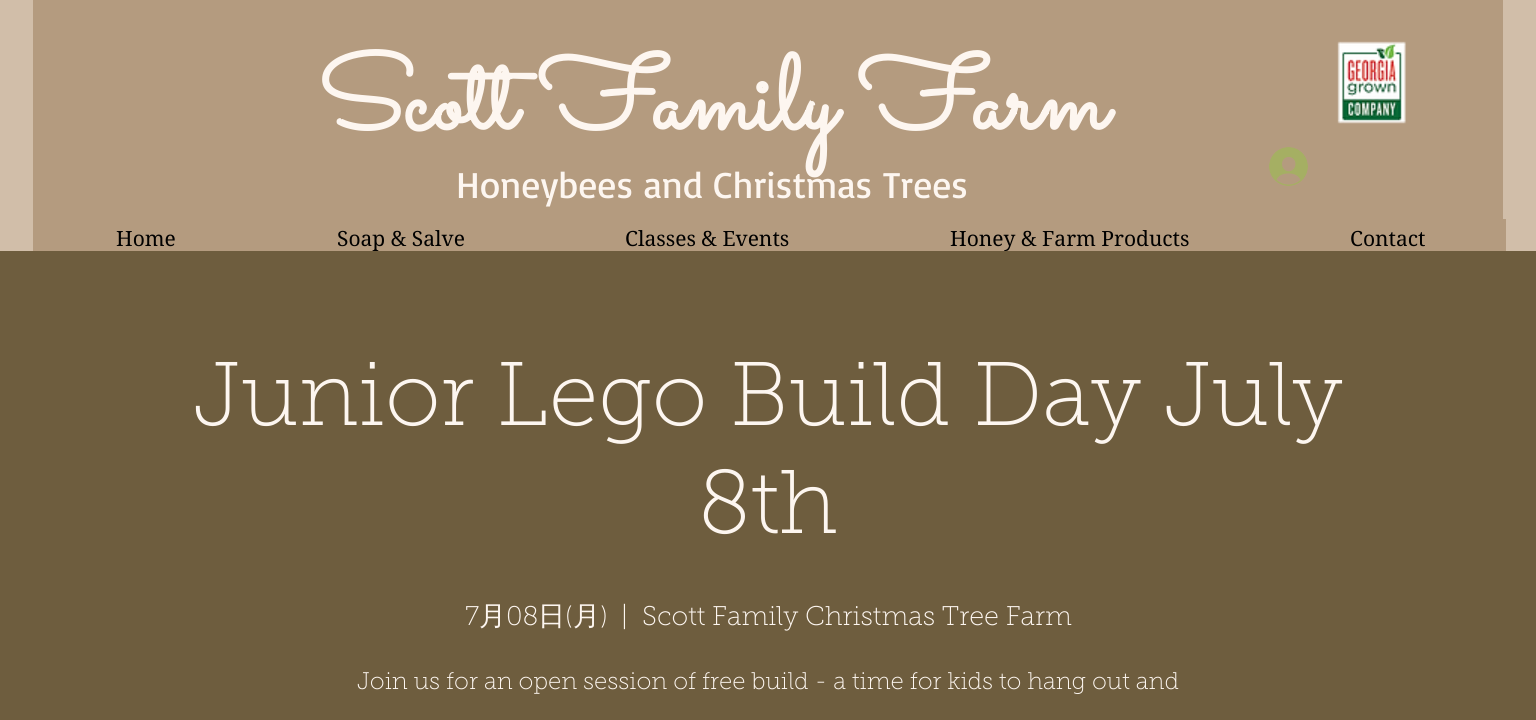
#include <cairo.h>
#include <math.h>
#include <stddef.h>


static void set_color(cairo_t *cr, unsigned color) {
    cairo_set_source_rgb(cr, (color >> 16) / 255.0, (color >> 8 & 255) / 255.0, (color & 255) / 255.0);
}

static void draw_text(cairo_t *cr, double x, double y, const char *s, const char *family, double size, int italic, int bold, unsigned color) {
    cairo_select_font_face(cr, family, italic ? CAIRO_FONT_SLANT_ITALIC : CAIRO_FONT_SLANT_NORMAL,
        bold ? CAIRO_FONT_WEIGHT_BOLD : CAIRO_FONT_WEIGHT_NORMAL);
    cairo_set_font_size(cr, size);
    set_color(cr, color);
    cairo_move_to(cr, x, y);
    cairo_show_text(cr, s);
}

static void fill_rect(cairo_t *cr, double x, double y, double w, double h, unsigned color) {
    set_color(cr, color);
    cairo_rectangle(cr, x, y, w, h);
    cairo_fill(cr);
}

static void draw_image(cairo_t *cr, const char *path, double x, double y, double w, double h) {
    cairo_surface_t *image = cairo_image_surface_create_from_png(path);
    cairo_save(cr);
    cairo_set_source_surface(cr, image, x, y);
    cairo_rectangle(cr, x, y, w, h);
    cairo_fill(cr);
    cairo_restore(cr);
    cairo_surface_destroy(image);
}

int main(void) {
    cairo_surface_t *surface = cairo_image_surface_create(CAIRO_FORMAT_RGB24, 1536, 720);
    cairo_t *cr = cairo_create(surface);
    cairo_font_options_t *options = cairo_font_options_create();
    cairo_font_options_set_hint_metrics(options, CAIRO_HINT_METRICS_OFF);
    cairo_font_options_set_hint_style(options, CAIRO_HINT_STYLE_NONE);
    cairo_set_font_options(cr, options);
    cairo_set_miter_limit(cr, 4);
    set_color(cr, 0xD1BEA9);
    cairo_paint(cr);
    fill_rect(cr, 33, 0, 1470, 251, 0xB49B7F);
    draw_text(cr, 317, 129, "Scott Family Farm", "Sacramento", 105, 0, 1, 0xFDF6F0);
    draw_text(cr, 456, 198, "Honeybees and Christmas Trees", "Basic", 37.5, 0, 0, 0xFDF6F0);
    draw_image(cr, "assets/img1.png", 1269, 147, 39, 39);
    draw_image(cr, "assets/img2.png", 1337, 41, 69, 83);
    fill_rect(cr, 1503, 219, 3, 32, 0xB49B7F);
    draw_text(cr, 116, 246, "Home", "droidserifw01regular", 21, 0, 0, 0x000000);
    draw_text(cr, 337, 246, "Soap & Salve", "droidserifw01regular", 21, 0, 0, 0x000000);
    draw_text(cr, 625, 246, "Classes & Events", "droidserifw01regular", 21, 0, 0, 0x000000);
    draw_text(cr, 950, 246, "Honey & Farm Products", "droidserifw01regular", 21, 0, 0, 0x000000);
    draw_text(cr, 1350, 246, "Contact", "droidserifw01regular", 21, 0, 0, 0x000000);
    fill_rect(cr, 0, 251, 1536, 469, 0x6E5D3E);
    draw_text(cr, 193, 425, "Junior Lego Build Day July", "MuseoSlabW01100 Thin", 90, 0, 0, 0xFDF6F0);
    draw_text(cr, 698, 533, "8th", "MuseoSlabW01100 Thin", 90, 0, 0, 0xFDF6F0);
    draw_text(cr, 465, 625, "7", "MuseoSlabW01100 Thin", 27, 0, 0, 0xFDF6F0);
    draw_text(cr, 479, 625, "月", "WenQuanYi Zen Hei Medium", 27, 0, 0, 0xFDF6F0);
    draw_text(cr, 506, 625, "08", "MuseoSlabW01100 Thin", 27, 0, 0, 0xFDF6F0);
    draw_text(cr, 538, 625, "日", "WenQuanYi Zen Hei Medium", 27, 0, 0, 0xFDF6F0);
    draw_text(cr, 565, 625, "(", "MuseoSlabW01100 Thin", 27, 0, 0, 0xFDF6F0);
    draw_text(cr, 573, 625, "月", "WenQuanYi Zen Hei Medium", 27, 0, 0, 0xFDF6F0);
    draw_text(cr, 600, 625, ")", "MuseoSlabW01100 Thin", 27, 0, 0, 0xFDF6F0);
    draw_text(cr, 621, 625, "|", "MuseoSlabW01100 Thin", 27, 0, 0, 0xFDF6F0);
    draw_text(cr, 642, 625, "Scott Family Christmas Tree Farm", "MuseoSlabW01100 Thin", 27, 0, 0, 0xFDF6F0);
    draw_text(cr, 357, 689, "Join us for an open session of free build - a time for kids to hang out and", "MuseoSlabW01100 Thin", 24, 0, 0, 0xFDF6F0);
    cairo_surface_write_to_png(surface, "output.png");
    cairo_font_options_destroy(options);
    cairo_destroy(cr);
    cairo_surface_destroy(surface);
    return 0;
}
